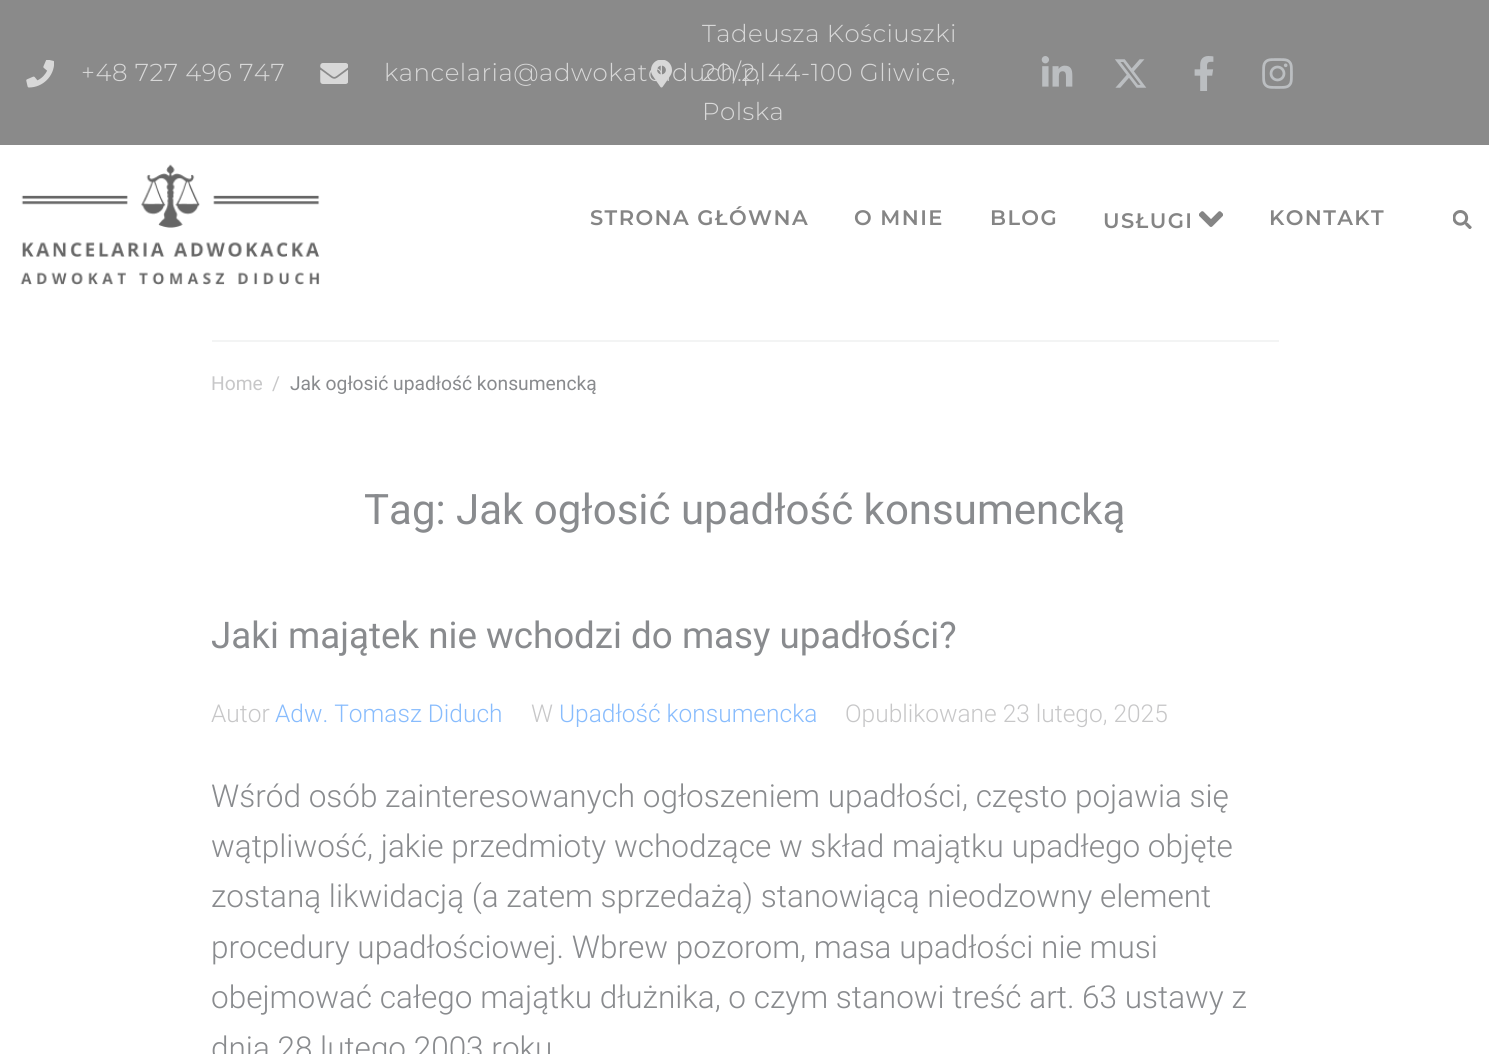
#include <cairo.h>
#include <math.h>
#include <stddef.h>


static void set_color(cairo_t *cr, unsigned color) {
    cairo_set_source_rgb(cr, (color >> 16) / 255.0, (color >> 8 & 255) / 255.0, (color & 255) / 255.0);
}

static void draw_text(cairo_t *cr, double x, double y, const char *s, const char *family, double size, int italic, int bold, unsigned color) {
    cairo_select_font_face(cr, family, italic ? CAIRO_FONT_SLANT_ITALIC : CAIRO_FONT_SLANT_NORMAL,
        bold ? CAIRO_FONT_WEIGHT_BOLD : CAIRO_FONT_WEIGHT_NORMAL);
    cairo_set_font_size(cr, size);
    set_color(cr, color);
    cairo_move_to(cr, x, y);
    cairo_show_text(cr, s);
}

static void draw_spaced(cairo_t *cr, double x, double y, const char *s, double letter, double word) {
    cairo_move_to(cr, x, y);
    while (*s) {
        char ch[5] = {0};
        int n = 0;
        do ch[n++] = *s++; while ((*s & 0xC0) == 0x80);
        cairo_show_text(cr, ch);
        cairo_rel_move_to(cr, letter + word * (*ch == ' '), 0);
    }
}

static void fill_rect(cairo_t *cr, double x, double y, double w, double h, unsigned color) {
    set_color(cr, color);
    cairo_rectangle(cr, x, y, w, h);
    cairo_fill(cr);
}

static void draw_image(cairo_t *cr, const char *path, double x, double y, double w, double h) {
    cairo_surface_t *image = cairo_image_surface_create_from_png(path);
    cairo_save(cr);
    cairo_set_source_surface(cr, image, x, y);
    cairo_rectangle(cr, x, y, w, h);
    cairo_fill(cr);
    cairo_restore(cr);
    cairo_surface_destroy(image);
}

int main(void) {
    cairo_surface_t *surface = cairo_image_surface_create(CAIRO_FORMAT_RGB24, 1489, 1054);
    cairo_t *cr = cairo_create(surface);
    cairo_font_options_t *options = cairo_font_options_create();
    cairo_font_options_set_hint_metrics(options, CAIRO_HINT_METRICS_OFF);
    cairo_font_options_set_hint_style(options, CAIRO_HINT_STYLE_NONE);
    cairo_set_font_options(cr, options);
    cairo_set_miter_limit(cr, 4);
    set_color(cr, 0xFFFFFF);
    cairo_paint(cr);
    fill_rect(cr, 0, 0, 1489, 145, 0x8A8A8A);
    draw_image(cr, "assets/img1.png", 26, 60, 28, 28);
    cairo_select_font_face(cr, "Montserrat Light", CAIRO_FONT_SLANT_NORMAL, CAIRO_FONT_WEIGHT_NORMAL);
    cairo_set_font_size(cr, 24.5);
    set_color(cr, 0xD8D8D8);
    draw_spaced(cr, 81, 81, "+48 727 496 747", 0.5, 0);
    draw_image(cr, "assets/img2.png", 320, 63, 28, 21);
    draw_spaced(cr, 384, 81, "kancelaria@adwokatdiduch.pl", 0.5, 0);
    draw_image(cr, "assets/img3.png", 651, 60, 21, 28);
    draw_spaced(cr, 702, 42, "Tadeusza Kościuszki", 0.5, 0);
    draw_spaced(cr, 702, 81, "20/2, 44-100 Gliwice,", 0.5, 0);
    draw_spaced(cr, 702, 120, "Polska", 0.5, 0);
    draw_image(cr, "assets/img4.png", 1041, 56, 32, 31);
    draw_image(cr, "assets/img5.png", 1115, 59, 32, 29);
    draw_image(cr, "assets/img6.png", 1194, 56, 20, 35);
    draw_image(cr, "assets/img7.png", 1262, 58, 31, 31);
    draw_image(cr, "assets/img8.png", 20, 164, 300, 121);
    cairo_select_font_face(cr, "Montserrat SemiBold", CAIRO_FONT_SLANT_NORMAL, CAIRO_FONT_WEIGHT_NORMAL);
    cairo_set_font_size(cr, 21);
    set_color(cr, 0x858585);
    draw_spaced(cr, 590, 225, "STRONA GŁÓWNA", 1.4, 0);
    draw_spaced(cr, 854, 225, "O MNIE", 1.4, 0);
    draw_spaced(cr, 990, 225, "BLOG", 1.4, 0);
    draw_spaced(cr, 1103, 228, "USŁUGI", 1.4, 0);
    draw_image(cr, "assets/img9.png", 1199, 211, 24, 16);
    draw_spaced(cr, 1269, 225, "KONTAKT", 1.4, 0);
    draw_image(cr, "assets/img10.png", 1453, 210, 19, 19);
    fill_rect(cr, 212, 340, 1067, 2, 0xF3F4F4);
    draw_text(cr, 211, 390, "Home", "Roboto", 19.25, 0, 0, 0xC7C7C8);
    draw_text(cr, 272, 390, "/", "Roboto", 19.25, 0, 0, 0xC7C7C8);
    draw_text(cr, 290, 390, "Jak ogłosić upadłość konsumencką", "Roboto", 19.25, 0, 0, 0x898B8E);
    draw_text(cr, 364, 524, "Tag: Jak ogłosić upadłość konsumencką", "Roboto", 42, 0, 0, 0x898B8E);
    draw_text(cr, 211, 648, "Jaki majątek nie wchodzi do masy upadłości?", "Roboto", 36.75, 0, 0, 0x898B8E);
    draw_text(cr, 211, 722, "Autor", "Roboto Light", 24.5, 0, 0, 0xC7C7C8);
    draw_text(cr, 275, 722, "Adw. Tomasz Diduch", "Roboto Light", 24.5, 0, 0, 0x88BCFD);
    draw_text(cr, 531, 722, "W", "Roboto Light", 24.5, 0, 0, 0xC7C7C8);
    draw_text(cr, 559, 722, "Upadłość konsumencka", "Roboto Light", 24.5, 0, 0, 0x88BCFD);
    draw_text(cr, 845, 722, "Opublikowane 23 lutego, 2025", "Roboto Light", 24.5, 0, 0, 0xC7C7C8);
    draw_text(cr, 211, 807, "Wśród osób zainteresowanych ogłoszeniem upadłości, często pojawia się", "Roboto Light", 31.5, 0, 0, 0x898B8E);
    draw_text(cr, 211, 857, "wątpliwość, jakie przedmioty wchodzące w skład majątku upadłego objęte", "Roboto Light", 31.5, 0, 0, 0x898B8E);
    draw_text(cr, 211, 907, "zostaną likwidacją (a zatem sprzedażą) stanowiącą nieodzowny element", "Roboto Light", 31.5, 0, 0, 0x898B8E);
    draw_text(cr, 211, 958, "procedury upadłościowej. Wbrew pozorom, masa upadłości nie musi", "Roboto Light", 31.5, 0, 0, 0x898B8E);
    draw_text(cr, 211, 1008, "obejmować całego majątku dłużnika, o czym stanowi treść art. 63 ustawy z", "Roboto Light", 31.5, 0, 0, 0x898B8E);
    draw_text(cr, 211, 1059, "dnia 28 lutego 2003 roku", "Roboto Light", 31.5, 0, 0, 0x898B8E);
    cairo_surface_write_to_png(surface, "output.png");
    cairo_font_options_destroy(options);
    cairo_destroy(cr);
    cairo_surface_destroy(surface);
    return 0;
}
